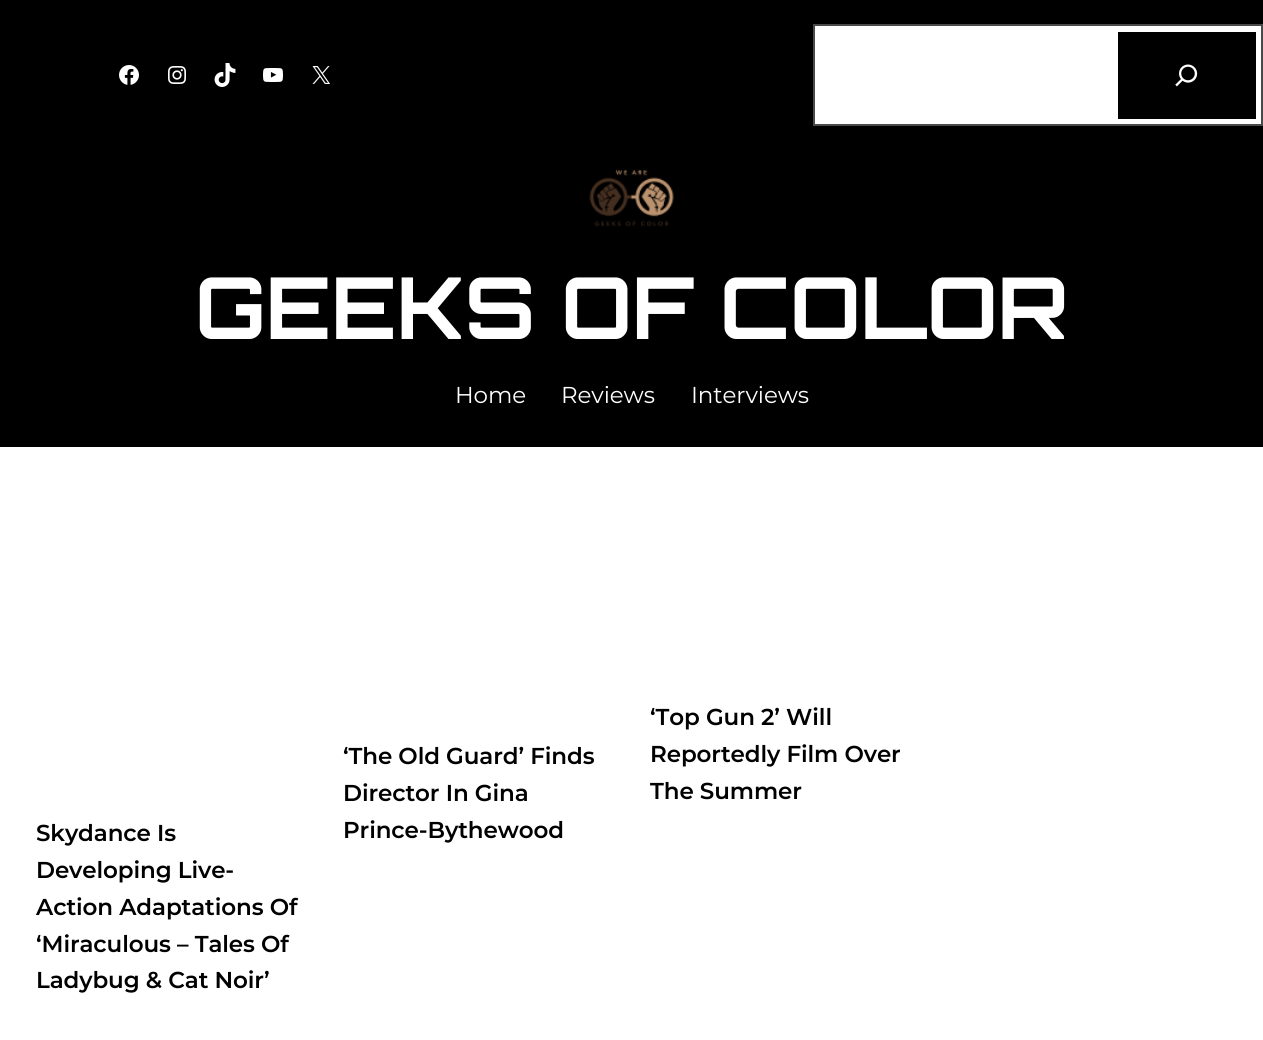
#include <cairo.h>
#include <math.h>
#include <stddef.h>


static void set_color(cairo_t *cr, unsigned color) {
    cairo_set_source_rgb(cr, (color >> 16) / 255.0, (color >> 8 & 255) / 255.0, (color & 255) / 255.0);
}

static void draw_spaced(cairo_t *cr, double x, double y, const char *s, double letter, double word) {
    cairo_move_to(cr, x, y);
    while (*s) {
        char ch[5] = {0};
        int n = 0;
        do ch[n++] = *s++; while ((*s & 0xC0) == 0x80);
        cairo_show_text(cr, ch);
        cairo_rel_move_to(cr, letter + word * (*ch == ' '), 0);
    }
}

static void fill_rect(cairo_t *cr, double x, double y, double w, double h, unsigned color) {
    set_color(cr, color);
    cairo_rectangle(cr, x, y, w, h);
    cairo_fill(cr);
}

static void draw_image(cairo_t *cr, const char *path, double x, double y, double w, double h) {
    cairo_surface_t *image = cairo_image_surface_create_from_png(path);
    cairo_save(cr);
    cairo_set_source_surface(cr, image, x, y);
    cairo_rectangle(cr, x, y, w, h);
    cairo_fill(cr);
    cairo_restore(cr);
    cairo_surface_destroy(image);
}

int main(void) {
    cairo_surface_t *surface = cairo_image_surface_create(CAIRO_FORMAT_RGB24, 1263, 1040);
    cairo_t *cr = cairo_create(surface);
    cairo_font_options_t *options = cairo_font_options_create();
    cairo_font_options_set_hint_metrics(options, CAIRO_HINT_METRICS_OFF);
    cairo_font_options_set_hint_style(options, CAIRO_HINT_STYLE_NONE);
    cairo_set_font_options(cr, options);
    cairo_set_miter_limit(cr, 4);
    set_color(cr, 0xFFFFFF);
    cairo_paint(cr);
    fill_rect(cr, 0, 0, 1263, 447, 0x000000);
    draw_image(cr, "assets/img1.png", 119, 65, 20, 20);
    draw_image(cr, "assets/img2.png", 168, 66, 18, 18);
    draw_image(cr, "assets/img3.png", 214, 63, 22, 24);
    draw_image(cr, "assets/img4.png", 263, 68, 20, 14);
    draw_image(cr, "assets/img5.png", 312, 66, 18, 18);
    set_color(cr, 0xFFFFFF);
    cairo_rectangle(cr, 814, 25, 448, 100);
    cairo_fill_preserve(cr);
    set_color(cr, 0x4A4A4A);
    cairo_stroke(cr);
    fill_rect(cr, 1118, 32, 138, 87, 0x000000);
    draw_image(cr, "assets/img6.png", 1175, 64, 23, 23);
    draw_image(cr, "assets/img7.png", 589, 169, 85, 58);
    cairo_select_font_face(cr, "Orbitron", CAIRO_FONT_SLANT_NORMAL, CAIRO_FONT_WEIGHT_BOLD);
    cairo_set_font_size(cr, 85.5);
    set_color(cr, 0xFFFFFF);
    draw_spaced(cr, 195, 339, "GEEKS OF COLOR", -0.1, 0);
    cairo_select_font_face(cr, "Montserrat", CAIRO_FONT_SLANT_NORMAL, CAIRO_FONT_WEIGHT_NORMAL);
    cairo_set_font_size(cr, 23);
    draw_spaced(cr, 455, 403, "Home", -0.1, 0);
    draw_spaced(cr, 561, 403, "Reviews", -0.1, 0);
    draw_spaced(cr, 691, 403, "Interviews", -0.1, 0);
    cairo_select_font_face(cr, "Montserrat SemiBold", CAIRO_FONT_SLANT_NORMAL, CAIRO_FONT_WEIGHT_NORMAL);
    set_color(cr, 0x000000);
    draw_spaced(cr, 343, 764, "‘The Old Guard’ Finds", -0.1, 0);
    draw_spaced(cr, 343, 801, "Director In Gina", -0.1, 0);
    draw_spaced(cr, 343, 838, "Prince-Bythewood", -0.1, 0);
    draw_spaced(cr, 650, 725, "‘Top Gun 2’ Will", -0.1, 0);
    draw_spaced(cr, 650, 762, "Reportedly Film Over", -0.1, 0);
    draw_spaced(cr, 650, 799, "The Summer", -0.1, 0);
    draw_spaced(cr, 36, 841, "Skydance Is", -0.1, 0);
    draw_spaced(cr, 36, 878, "Developing Live-", -0.1, 0);
    draw_spaced(cr, 36, 915, "Action Adaptations Of", -0.1, 0);
    draw_spaced(cr, 36, 952, "‘Miraculous – Tales Of", -0.1, 0);
    draw_spaced(cr, 36, 988, "Ladybug & Cat Noir’", -0.1, 0);
    cairo_surface_write_to_png(surface, "output.png");
    cairo_font_options_destroy(options);
    cairo_destroy(cr);
    cairo_surface_destroy(surface);
    return 0;
}
